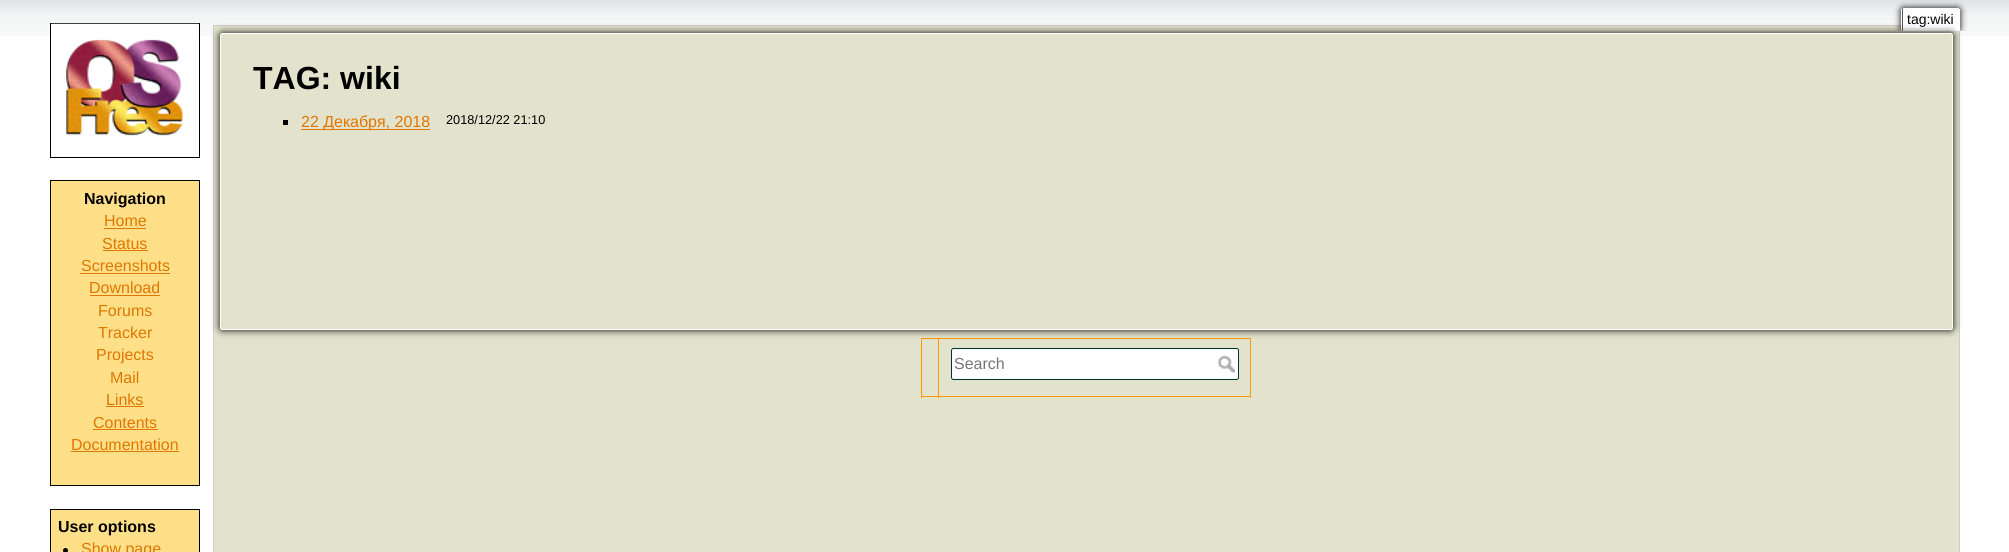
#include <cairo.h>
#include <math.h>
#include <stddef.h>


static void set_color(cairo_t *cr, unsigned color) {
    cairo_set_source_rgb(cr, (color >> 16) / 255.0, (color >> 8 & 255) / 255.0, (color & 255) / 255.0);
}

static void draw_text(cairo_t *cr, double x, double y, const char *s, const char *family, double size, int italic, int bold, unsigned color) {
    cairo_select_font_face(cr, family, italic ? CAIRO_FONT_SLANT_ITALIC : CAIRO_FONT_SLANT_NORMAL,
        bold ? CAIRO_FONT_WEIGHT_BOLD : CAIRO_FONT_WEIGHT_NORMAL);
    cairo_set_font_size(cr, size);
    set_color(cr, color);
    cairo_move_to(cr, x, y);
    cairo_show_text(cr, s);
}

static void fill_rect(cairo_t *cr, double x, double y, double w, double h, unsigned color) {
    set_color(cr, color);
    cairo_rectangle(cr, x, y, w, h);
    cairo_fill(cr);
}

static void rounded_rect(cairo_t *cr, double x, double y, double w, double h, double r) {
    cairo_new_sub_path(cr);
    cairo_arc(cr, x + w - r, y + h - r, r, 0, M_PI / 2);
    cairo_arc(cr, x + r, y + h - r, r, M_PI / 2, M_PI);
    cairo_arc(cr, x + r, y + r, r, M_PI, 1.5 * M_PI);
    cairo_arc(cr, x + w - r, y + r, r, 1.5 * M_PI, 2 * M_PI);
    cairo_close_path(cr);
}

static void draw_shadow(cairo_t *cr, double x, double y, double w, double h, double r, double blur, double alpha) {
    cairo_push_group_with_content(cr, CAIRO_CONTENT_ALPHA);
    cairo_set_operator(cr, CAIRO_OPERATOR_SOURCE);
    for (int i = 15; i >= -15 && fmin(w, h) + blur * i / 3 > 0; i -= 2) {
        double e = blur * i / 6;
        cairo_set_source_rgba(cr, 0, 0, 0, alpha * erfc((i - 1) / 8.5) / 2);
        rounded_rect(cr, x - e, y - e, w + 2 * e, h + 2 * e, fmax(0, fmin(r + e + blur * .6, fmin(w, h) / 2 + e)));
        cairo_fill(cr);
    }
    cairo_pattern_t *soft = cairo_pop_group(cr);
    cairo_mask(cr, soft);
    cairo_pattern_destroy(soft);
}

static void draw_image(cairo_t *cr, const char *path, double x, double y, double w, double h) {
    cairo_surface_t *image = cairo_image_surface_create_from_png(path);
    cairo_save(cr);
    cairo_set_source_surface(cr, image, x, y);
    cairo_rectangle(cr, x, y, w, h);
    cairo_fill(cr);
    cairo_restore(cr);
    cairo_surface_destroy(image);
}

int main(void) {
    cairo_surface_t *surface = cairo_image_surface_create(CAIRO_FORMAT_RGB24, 2009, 552);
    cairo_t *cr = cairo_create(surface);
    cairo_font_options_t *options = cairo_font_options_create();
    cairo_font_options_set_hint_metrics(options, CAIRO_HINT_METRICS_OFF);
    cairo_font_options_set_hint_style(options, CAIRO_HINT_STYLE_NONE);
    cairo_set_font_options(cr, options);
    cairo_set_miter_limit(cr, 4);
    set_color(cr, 0xFFFFFF);
    cairo_paint(cr);
    draw_image(cr, "assets/img1.png", 0, 0, 2009, 36);
    cairo_rectangle(cr, 50.5, 23.5, 149, 134);
    set_color(cr, 0x000000);
    cairo_set_line_width(cr, 1);
    cairo_stroke(cr);
    draw_image(cr, "assets/img2.png", 51, 23, 148, 113);
    set_color(cr, 0xFFE089);
    cairo_rectangle(cr, 50.5, 180.5, 149, 305);
    cairo_fill_preserve(cr);
    set_color(cr, 0x000000);
    cairo_stroke(cr);
    draw_text(cr, 84, 204, "Navigation", "Liberation Sans", 16, 0, 1, 0x000000);
    draw_text(cr, 104, 226, "Home", "Liberation Sans", 16, 0, 0, 0xE17600);
    fill_rect(cr, 104, 228, 42, 1, 0xE17600);
    draw_text(cr, 102, 249, "Status", "Liberation Sans", 16, 0, 0, 0xE17600);
    fill_rect(cr, 103, 250, 45, 1, 0xE17600);
    draw_text(cr, 81, 271, "Screenshots", "Liberation Sans", 16, 0, 0, 0xE17600);
    fill_rect(cr, 80, 273, 90, 1, 0xE17600);
    draw_text(cr, 89, 293, "Download", "Liberation Sans", 16, 0, 0, 0xE17600);
    fill_rect(cr, 90, 295, 70, 1, 0xE17600);
    draw_text(cr, 98, 316, "Forums", "Liberation Sans", 16, 0, 0, 0xE17600);
    draw_text(cr, 98, 338, "Tracker", "Liberation Sans", 16, 0, 0, 0xE17600);
    draw_text(cr, 96, 360, "Projects", "Liberation Sans", 16, 0, 0, 0xE17600);
    draw_text(cr, 110, 383, "Mail", "Liberation Sans", 16, 0, 0, 0xE17600);
    draw_text(cr, 106, 405, "Links", "Liberation Sans", 16, 0, 0, 0xE17600);
    fill_rect(cr, 106, 406, 38, 1, 0xE17600);
    draw_text(cr, 93, 428, "Contents", "Liberation Sans", 16, 0, 0, 0xE17600);
    fill_rect(cr, 93, 429, 65, 1, 0xE17600);
    draw_text(cr, 71, 450, "Documentation", "Liberation Sans", 16, 0, 0, 0xE17600);
    fill_rect(cr, 71, 451, 108, 1, 0xE17600);
    set_color(cr, 0xFFE089);
    cairo_rectangle(cr, 50.5, 509.5, 149, 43);
    cairo_fill_preserve(cr);
    set_color(cr, 0x000000);
    cairo_stroke(cr);
    draw_text(cr, 58, 532, "User options", "Liberation Sans", 16, 0, 1, 0x000000);
    cairo_new_path(cr);
    cairo_arc(cr, 65.5, 550.5, 2.5, 0, 2 * M_PI);
    cairo_fill(cr);
    draw_text(cr, 81, 554, "Show page", "Liberation Sans", 16, 0, 0, 0xE17600);
    set_color(cr, 0xE3E3CD);
    cairo_rectangle(cr, 213.5, 25.5, 1746, 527);
    cairo_fill_preserve(cr);
    set_color(cr, 0xCCCCCC);
    cairo_stroke(cr);
    cairo_save(cr);
    cairo_rectangle(cr, 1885, 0, 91, 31);
    cairo_clip(cr);
    set_color(cr, 0x000000);
    draw_shadow(cr, 1901, 8, 59, 23, 2.5, 3.5, 1);
    cairo_restore(cr);
    set_color(cr, 0xFFFFFF);
    cairo_new_path(cr);
    cairo_move_to(cr, 1904, 9);
    cairo_line_to(cr, 1958, 9);
    cairo_curve_to(cr, 1958.5, 9, 1959, 9.5, 1959, 10);
    cairo_line_to(cr, 1959, 31);
    cairo_line_to(cr, 1903, 31);
    cairo_line_to(cr, 1903, 10);
    cairo_curve_to(cr, 1903, 9.5, 1903.5, 9, 1904, 9);
    cairo_close_path(cr);
    cairo_fill(cr);
    fill_rect(cr, 1903, 8, 56, 1, 0xFFFFFF);
    fill_rect(cr, 1959, 9, 1, 22, 0xFFFFFF);
    fill_rect(cr, 1901, 9, 1, 22, 0xFFFFFF);
    draw_text(cr, 1907, 24, "tag:wiki", "Liberation Sans", 14, 0, 0, 0x000000);
    fill_rect(cr, 921, 338, 330, 1, 0xFF9900);
    fill_rect(cr, 1250, 338, 1, 60, 0xFF9900);
    fill_rect(cr, 921, 396, 330, 1, 0xFF9900);
    fill_rect(cr, 921, 338, 1, 60, 0xFF9900);
    fill_rect(cr, 938, 338, 1, 60, 0xFF9900);
    set_color(cr, 0x000000);
    draw_shadow(cr, 220, 33, 1733, 297, 2.5, 4, 1);
    set_color(cr, 0xE3E3CD);
    rounded_rect(cr, 220.5, 33.5, 1732, 296, 2);
    cairo_fill_preserve(cr);
    set_color(cr, 0xFFFFFF);
    cairo_stroke(cr);
    draw_text(cr, 253, 89, "TAG: wiki", "Liberation Sans", 32, 0, 1, 0x000000);
    fill_rect(cr, 283, 120, 5, 5, 0x000000);
    fill_rect(cr, 301, 129, 129, 1, 0xE17600);
    draw_text(cr, 301, 127, "22 Декабря, 2018", "Liberation Sans", 16, 0, 0, 0xE17600);
    draw_text(cr, 446, 124, "2018/12/22 21:10", "Liberation Sans", 12.75, 0, 0, 0x000000);
    set_color(cr, 0xFFFFFF);
    rounded_rect(cr, 951.5, 348.5, 287, 31, 2);
    cairo_fill_preserve(cr);
    set_color(cr, 0x003333);
    cairo_stroke(cr);
    draw_text(cr, 954, 369, "Search", "Liberation Sans", 16, 0, 0, 0x757575);
    draw_image(cr, "assets/img3.png", 1217, 355, 18, 18);
    cairo_surface_write_to_png(surface, "output.png");
    cairo_font_options_destroy(options);
    cairo_destroy(cr);
    cairo_surface_destroy(surface);
    return 0;
}
